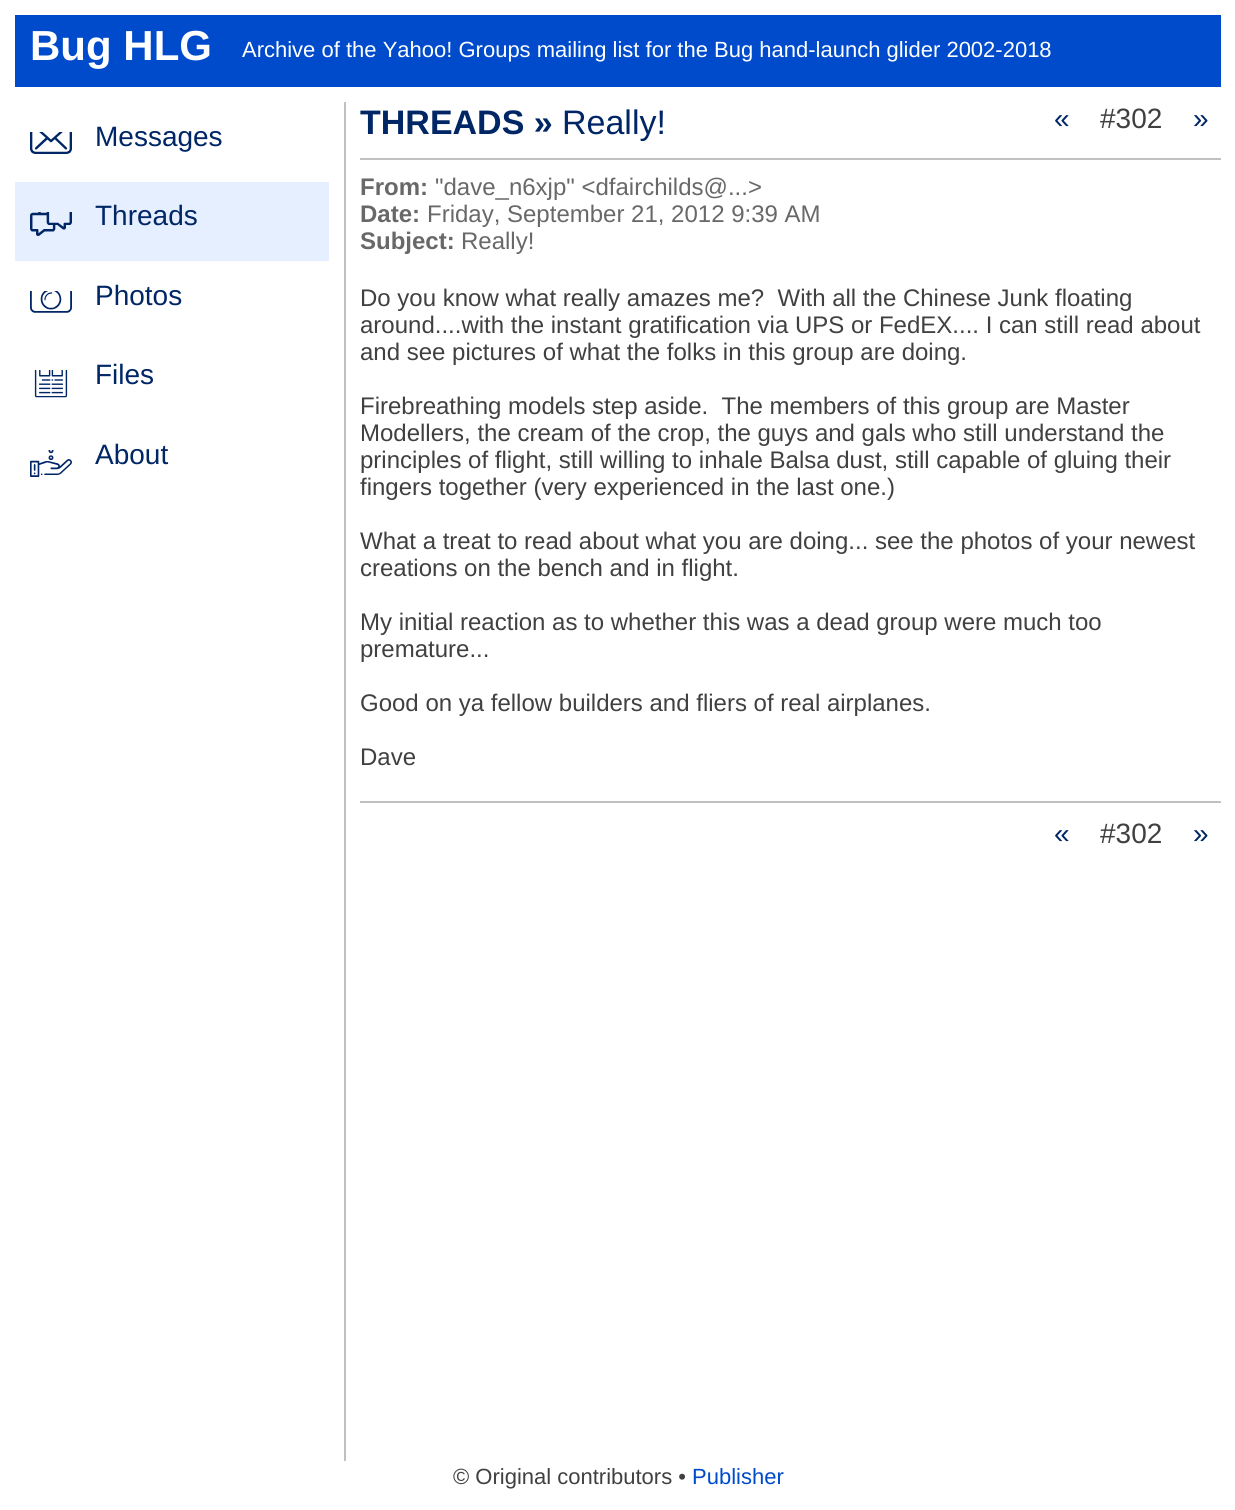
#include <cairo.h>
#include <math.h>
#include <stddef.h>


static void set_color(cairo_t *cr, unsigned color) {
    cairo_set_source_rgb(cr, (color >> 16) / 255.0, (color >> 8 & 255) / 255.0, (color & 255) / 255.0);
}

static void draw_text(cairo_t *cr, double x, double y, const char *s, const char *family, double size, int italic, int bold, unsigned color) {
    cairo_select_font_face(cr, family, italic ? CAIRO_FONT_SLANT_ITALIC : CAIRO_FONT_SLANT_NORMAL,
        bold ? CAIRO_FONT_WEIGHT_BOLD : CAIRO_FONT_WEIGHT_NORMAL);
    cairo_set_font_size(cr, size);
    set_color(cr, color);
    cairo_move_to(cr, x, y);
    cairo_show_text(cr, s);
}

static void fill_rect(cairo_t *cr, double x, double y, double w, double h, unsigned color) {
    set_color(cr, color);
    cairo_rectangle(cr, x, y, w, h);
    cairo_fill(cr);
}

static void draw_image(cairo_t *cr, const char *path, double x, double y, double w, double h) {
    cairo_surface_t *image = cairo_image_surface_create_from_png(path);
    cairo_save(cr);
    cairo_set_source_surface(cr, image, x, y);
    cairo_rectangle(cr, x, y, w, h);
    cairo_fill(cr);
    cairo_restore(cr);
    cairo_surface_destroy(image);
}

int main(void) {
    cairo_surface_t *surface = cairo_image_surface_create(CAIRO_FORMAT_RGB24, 1235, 1510);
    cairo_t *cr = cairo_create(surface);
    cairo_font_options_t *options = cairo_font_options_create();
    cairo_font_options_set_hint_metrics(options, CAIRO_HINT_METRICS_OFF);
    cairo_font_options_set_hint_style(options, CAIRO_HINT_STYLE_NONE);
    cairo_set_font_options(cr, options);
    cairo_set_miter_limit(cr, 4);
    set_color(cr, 0xFFFFFF);
    cairo_paint(cr);
    fill_rect(cr, 15, 15, 1206, 72, 0x004BCC);
    draw_text(cr, 30, 60, "Bug HLG", "Liberation Sans", 42, 0, 1, 0xFFFFFF);
    draw_text(cr, 242, 57, "Archive of the Yahoo! Groups mailing list for the Bug hand-launch glider 2002-2018", "Liberation Sans", 22, 0, 0, 0xFFFFFF);
    fill_rect(cr, 344, 102, 2, 1359, 0xC0C0C0);
    draw_image(cr, "assets/img1.png", 30, 132, 42, 22);
    draw_text(cr, 95, 146, "Messages", "Liberation Sans", 28, 0, 0, 0x002666);
    fill_rect(cr, 15, 182, 314, 79, 0xE6EFFF);
    draw_image(cr, "assets/img2.png", 30, 212, 42, 24);
    draw_text(cr, 95, 225, "Threads", "Liberation Sans", 28, 0, 0, 0x002666);
    draw_image(cr, "assets/img3.png", 30, 291, 42, 22);
    draw_text(cr, 95, 305, "Photos", "Liberation Sans", 28, 0, 0, 0x002666);
    draw_image(cr, "assets/img4.png", 34, 370, 34, 28);
    draw_text(cr, 95, 384, "Files", "Liberation Sans", 28, 0, 0, 0x002666);
    draw_image(cr, "assets/img5.png", 30, 450, 42, 27);
    draw_text(cr, 95, 464, "About", "Liberation Sans", 28, 0, 0, 0x002666);
    fill_rect(cr, 360, 158, 861, 2, 0xC0C0C0);
    draw_text(cr, 360, 134, "THREADS »", "Liberation Sans", 34, 0, 1, 0x002666);
    draw_text(cr, 562, 134, "Really!", "Liberation Sans", 34, 0, 0, 0x002666);
    draw_text(cr, 1054, 128, "«", "Liberation Sans", 28, 0, 0, 0x002666);
    draw_text(cr, 1100, 128, "#302", "Liberation Sans", 28, 0, 0, 0x404040);
    draw_text(cr, 1193, 128, "»", "Liberation Sans", 28, 0, 0, 0x002666);
    draw_text(cr, 360, 195, "From:", "Liberation Sans", 24, 0, 1, 0x686868);
    draw_text(cr, 435, 195, "\"dave_n6xjp\" <dfairchilds@...>", "Liberation Sans", 24, 0, 0, 0x686868);
    draw_text(cr, 360, 222, "Date:", "Liberation Sans", 24, 0, 1, 0x686868);
    draw_text(cr, 427, 222, "Friday, September 21, 2012 9:39 AM", "Liberation Sans", 24, 0, 0, 0x686868);
    draw_text(cr, 360, 249, "Subject:", "Liberation Sans", 24, 0, 1, 0x686868);
    draw_text(cr, 461, 249, "Really!", "Liberation Sans", 24, 0, 0, 0x686868);
    draw_text(cr, 360, 306, "Do you know what really amazes me?  With all the Chinese Junk floating", "Liberation Sans", 24, 0, 0, 0x404040);
    draw_text(cr, 360, 333, "around....with the instant gratification via UPS or FedEX.... I can still read about", "Liberation Sans", 24, 0, 0, 0x404040);
    draw_text(cr, 360, 360, "and see pictures of what the folks in this group are doing.", "Liberation Sans", 24, 0, 0, 0x404040);
    draw_text(cr, 360, 414, "Firebreathing models step aside.  The members of this group are Master", "Liberation Sans", 24, 0, 0, 0x404040);
    draw_text(cr, 360, 441, "Modellers, the cream of the crop, the guys and gals who still understand the", "Liberation Sans", 24, 0, 0, 0x404040);
    draw_text(cr, 360, 468, "principles of flight, still willing to inhale Balsa dust, still capable of gluing their", "Liberation Sans", 24, 0, 0, 0x404040);
    draw_text(cr, 360, 495, "fingers together (very experienced in the last one.)", "Liberation Sans", 24, 0, 0, 0x404040);
    draw_text(cr, 360, 549, "What a treat to read about what you are doing... see the photos of your newest", "Liberation Sans", 24, 0, 0, 0x404040);
    draw_text(cr, 360, 576, "creations on the bench and in flight.", "Liberation Sans", 24, 0, 0, 0x404040);
    draw_text(cr, 360, 630, "My initial reaction as to whether this was a dead group were much too", "Liberation Sans", 24, 0, 0, 0x404040);
    draw_text(cr, 360, 657, "premature...", "Liberation Sans", 24, 0, 0, 0x404040);
    draw_text(cr, 360, 711, "Good on ya fellow builders and fliers of real airplanes.", "Liberation Sans", 24, 0, 0, 0x404040);
    draw_text(cr, 360, 765, "Dave", "Liberation Sans", 24, 0, 0, 0x404040);
    fill_rect(cr, 360, 801, 861, 2, 0xC0C0C0);
    draw_text(cr, 1054, 843, "«", "Liberation Sans", 28, 0, 0, 0x002666);
    draw_text(cr, 1100, 843, "#302", "Liberation Sans", 28, 0, 0, 0x404040);
    draw_text(cr, 1193, 843, "»", "Liberation Sans", 28, 0, 0, 0x002666);
    draw_text(cr, 453, 1484, "© Original contributors •", "Liberation Sans", 22, 0, 0, 0x404040);
    draw_text(cr, 692, 1484, "Publisher", "Liberation Sans", 22, 0, 0, 0x004BCC);
    cairo_surface_write_to_png(surface, "output.png");
    cairo_font_options_destroy(options);
    cairo_destroy(cr);
    cairo_surface_destroy(surface);
    return 0;
}
